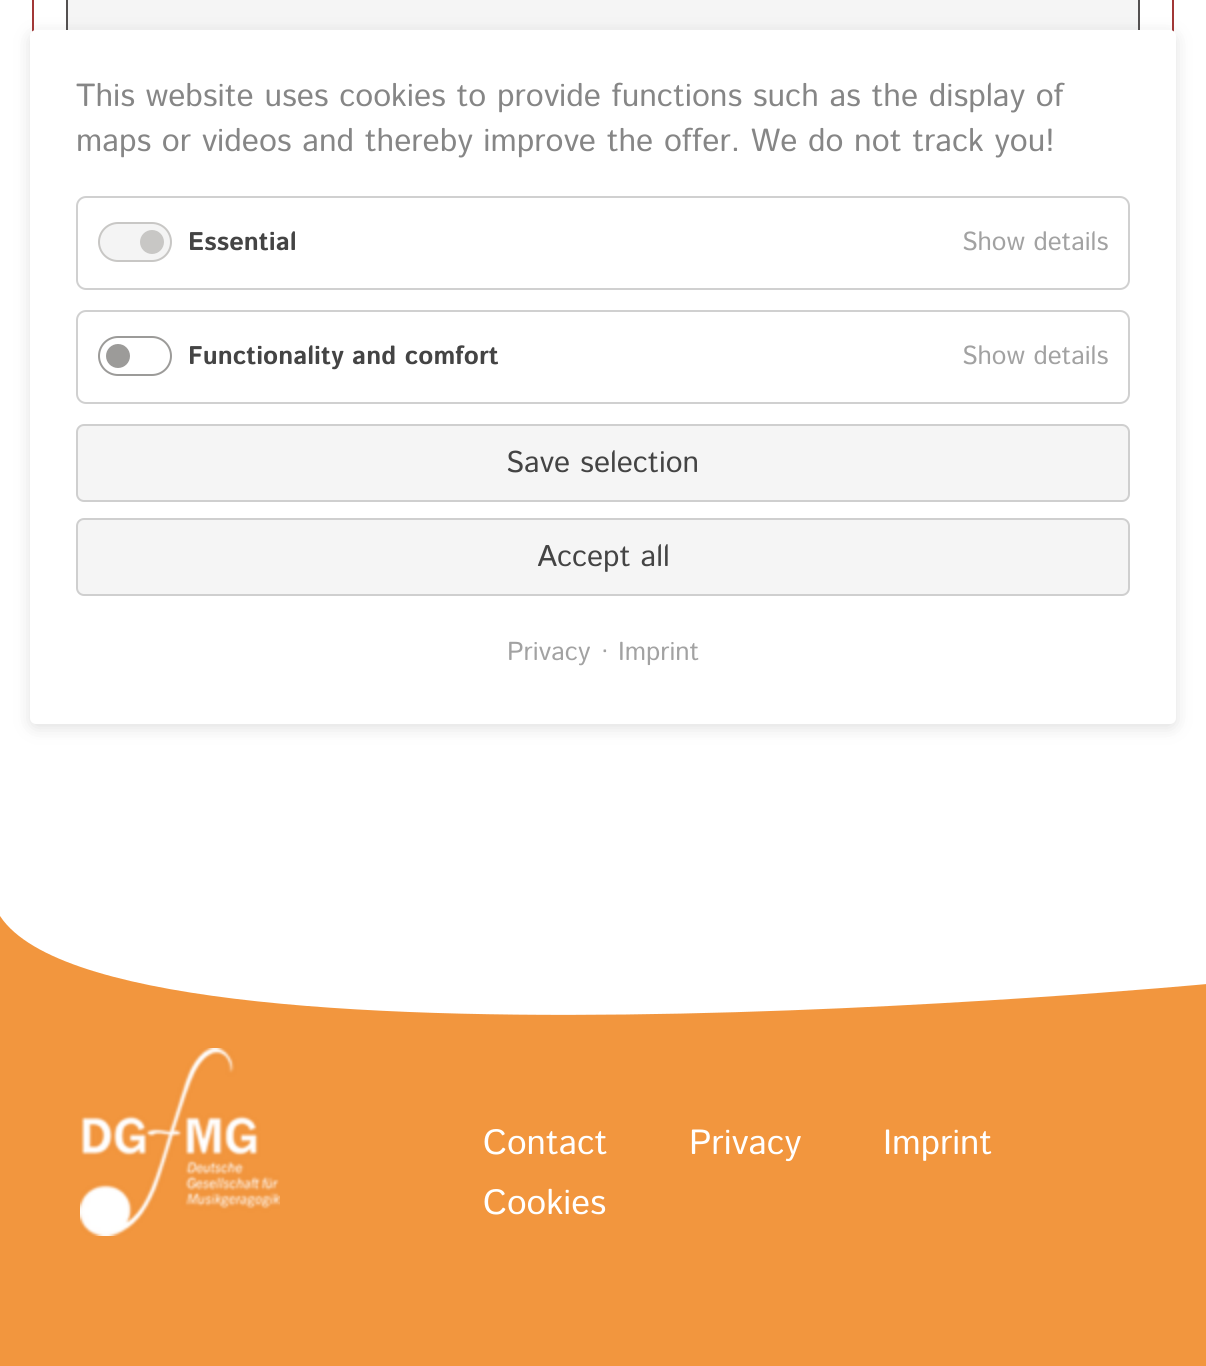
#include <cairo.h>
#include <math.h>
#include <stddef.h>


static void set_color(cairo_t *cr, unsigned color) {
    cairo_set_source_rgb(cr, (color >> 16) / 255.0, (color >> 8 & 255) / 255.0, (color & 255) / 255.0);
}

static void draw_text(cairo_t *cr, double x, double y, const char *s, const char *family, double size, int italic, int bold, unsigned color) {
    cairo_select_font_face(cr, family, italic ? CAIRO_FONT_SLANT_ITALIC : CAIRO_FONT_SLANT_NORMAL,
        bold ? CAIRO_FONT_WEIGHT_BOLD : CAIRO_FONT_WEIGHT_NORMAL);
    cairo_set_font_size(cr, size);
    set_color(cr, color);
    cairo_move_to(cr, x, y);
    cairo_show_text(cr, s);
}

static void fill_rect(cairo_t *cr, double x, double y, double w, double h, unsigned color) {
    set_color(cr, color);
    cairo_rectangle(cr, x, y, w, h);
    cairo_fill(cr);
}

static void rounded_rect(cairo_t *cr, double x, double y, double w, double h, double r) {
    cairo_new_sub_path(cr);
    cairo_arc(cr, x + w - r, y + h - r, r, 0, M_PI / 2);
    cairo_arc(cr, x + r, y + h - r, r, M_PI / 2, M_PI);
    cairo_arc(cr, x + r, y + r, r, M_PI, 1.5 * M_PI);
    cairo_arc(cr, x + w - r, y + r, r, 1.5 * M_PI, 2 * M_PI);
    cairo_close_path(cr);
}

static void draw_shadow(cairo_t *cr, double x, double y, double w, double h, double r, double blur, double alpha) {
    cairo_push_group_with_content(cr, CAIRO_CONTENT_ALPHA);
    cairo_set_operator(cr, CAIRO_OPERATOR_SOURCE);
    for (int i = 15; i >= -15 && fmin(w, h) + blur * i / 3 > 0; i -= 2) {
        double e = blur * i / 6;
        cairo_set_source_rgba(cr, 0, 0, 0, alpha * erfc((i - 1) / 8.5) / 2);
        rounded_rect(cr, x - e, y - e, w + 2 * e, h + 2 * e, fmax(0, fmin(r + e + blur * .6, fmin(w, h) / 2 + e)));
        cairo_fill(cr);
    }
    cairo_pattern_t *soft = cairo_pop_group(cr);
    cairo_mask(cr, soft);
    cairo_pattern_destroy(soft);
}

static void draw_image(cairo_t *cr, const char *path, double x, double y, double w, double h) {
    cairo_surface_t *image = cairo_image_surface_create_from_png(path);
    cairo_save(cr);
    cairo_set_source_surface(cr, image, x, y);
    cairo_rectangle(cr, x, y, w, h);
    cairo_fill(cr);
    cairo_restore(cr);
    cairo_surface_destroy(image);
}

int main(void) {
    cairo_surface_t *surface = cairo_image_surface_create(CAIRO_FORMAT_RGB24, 1206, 1366);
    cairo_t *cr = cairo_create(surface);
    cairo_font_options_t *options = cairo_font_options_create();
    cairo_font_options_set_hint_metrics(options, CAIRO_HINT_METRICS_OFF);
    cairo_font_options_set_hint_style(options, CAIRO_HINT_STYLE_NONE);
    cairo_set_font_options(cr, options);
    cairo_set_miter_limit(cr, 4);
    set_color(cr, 0xFFFFFF);
    cairo_paint(cr);
    cairo_rectangle(cr, 33, -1, 1140, 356);
    set_color(cr, 0xA23736);
    cairo_stroke(cr);
    fill_rect(cr, 68, 0, 1070, 30, 0xF5F5F5);
    cairo_rectangle(cr, 67, -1, 1072, 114);
    set_color(cr, 0x535050);
    cairo_stroke(cr);
    set_color(cr, 0x636363);
    draw_shadow(cr, 30, 34, 1146, 694, 6, 8, 0.2);
    set_color(cr, 0xFFFFFF);
    rounded_rect(cr, 30, 30, 1146, 694, 6);
    cairo_fill(cr);
    draw_text(cr, 76, 106, "This website uses cookies to provide functions such as the display of", "Istok Web", 32, 0, 0, 0x868686);
    draw_text(cr, 76, 151, "maps or videos and thereby improve the offer. We do not track you!", "Istok Web", 32, 0, 0, 0x868686);
    rounded_rect(cr, 77, 197, 1052, 92, 9);
    set_color(cr, 0xD0D0D0);
    cairo_stroke(cr);
    set_color(cr, 0xF4F4F4);
    rounded_rect(cr, 99, 223, 72, 38, 19);
    cairo_fill_preserve(cr);
    set_color(cr, 0xC8C7C5);
    cairo_stroke(cr);
    cairo_arc(cr, 152, 242, 12, 0, 2 * M_PI);
    cairo_fill(cr);
    draw_text(cr, 188, 250, "Essential", "Istok Web", 25.6, 0, 1, 0x444444);
    draw_text(cr, 962, 250, "Show details", "Istok Web", 26, 0, 0, 0xA2A2A2);
    rounded_rect(cr, 77, 311, 1052, 92, 9);
    set_color(cr, 0xD0D0D0);
    cairo_stroke(cr);
    rounded_rect(cr, 99, 337, 72, 38, 19);
    set_color(cr, 0x9C9B99);
    cairo_stroke(cr);
    cairo_arc(cr, 118, 356, 12, 0, 2 * M_PI);
    cairo_fill(cr);
    draw_text(cr, 188, 364, "Functionality and comfort", "Istok Web", 25.6, 0, 1, 0x444444);
    draw_text(cr, 962, 364, "Show details", "Istok Web", 26, 0, 0, 0xA2A2A2);
    set_color(cr, 0xF5F5F5);
    rounded_rect(cr, 77, 425, 1052, 76, 7);
    cairo_fill_preserve(cr);
    set_color(cr, 0xCFCFCF);
    cairo_stroke(cr);
    draw_text(cr, 506, 472, "Save selection", "Istok Web", 30, 0, 0, 0x444444);
    set_color(cr, 0xF5F5F5);
    rounded_rect(cr, 77, 519, 1052, 76, 7);
    cairo_fill_preserve(cr);
    set_color(cr, 0xCFCFCF);
    cairo_stroke(cr);
    draw_text(cr, 537, 566, "Accept all", "Istok Web", 30, 0, 0, 0x444444);
    draw_text(cr, 507, 660, "Privacy", "Istok Web", 26, 0, 0, 0xA2A2A2);
    draw_text(cr, 601, 660, "·", "Istok Web", 26, 0, 0, 0xA2A2A2);
    draw_text(cr, 618, 660, "Imprint", "Istok Web", 26, 0, 0, 0xA2A2A2);
    cairo_save(cr);
    cairo_rectangle(cr, 0, 916, 1206, 130);
    cairo_clip(cr);
    set_color(cr, 0xF2963E);
    cairo_set_fill_rule(cr, CAIRO_FILL_RULE_EVEN_ODD);
    cairo_new_path(cr);
    cairo_move_to(cr, -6, 904);
    cairo_curve_to(cr, -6, 903, -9, 1054, -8, 1053);
    cairo_line_to(cr, 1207, 1046);
    cairo_line_to(cr, 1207, 984);
    cairo_curve_to(cr, 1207, 984, 62, 1092, -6, 904);
    cairo_close_path(cr);
    cairo_fill(cr);
    cairo_restore(cr);
    fill_rect(cr, 0, 1046, 1206, 320, 0xF2963E);
    draw_image(cr, "assets/img1.png", 80, 1048, 200, 188);
    draw_text(cr, 483, 1154, "Contact", "Istok Web", 35, 0, 0, 0xFFFFFF);
    draw_text(cr, 689, 1154, "Privacy", "Istok Web", 35, 0, 0, 0xFFFFFF);
    draw_text(cr, 883, 1154, "Imprint", "Istok Web", 35, 0, 0, 0xFFFFFF);
    draw_text(cr, 483, 1214, "Cookies", "Istok Web", 35, 0, 0, 0xFFFFFF);
    cairo_surface_write_to_png(surface, "output.png");
    cairo_font_options_destroy(options);
    cairo_destroy(cr);
    cairo_surface_destroy(surface);
    return 0;
}
